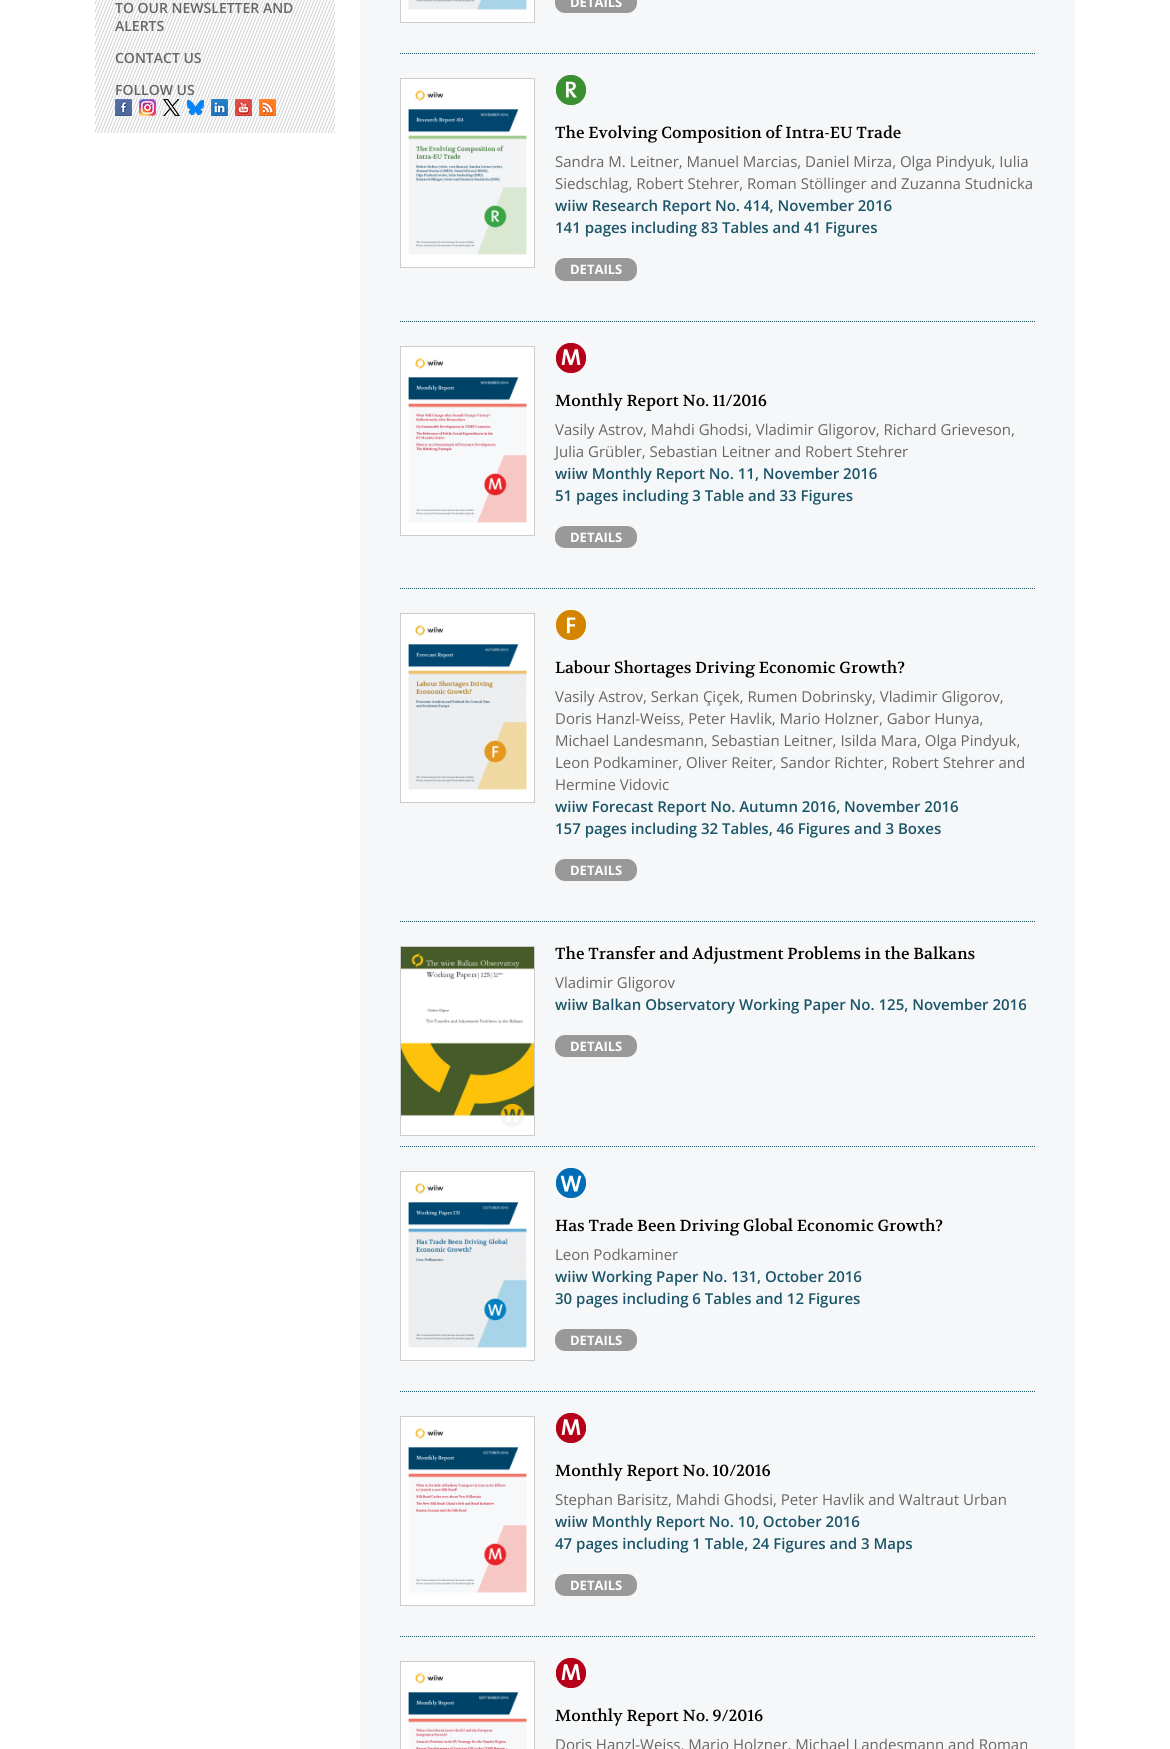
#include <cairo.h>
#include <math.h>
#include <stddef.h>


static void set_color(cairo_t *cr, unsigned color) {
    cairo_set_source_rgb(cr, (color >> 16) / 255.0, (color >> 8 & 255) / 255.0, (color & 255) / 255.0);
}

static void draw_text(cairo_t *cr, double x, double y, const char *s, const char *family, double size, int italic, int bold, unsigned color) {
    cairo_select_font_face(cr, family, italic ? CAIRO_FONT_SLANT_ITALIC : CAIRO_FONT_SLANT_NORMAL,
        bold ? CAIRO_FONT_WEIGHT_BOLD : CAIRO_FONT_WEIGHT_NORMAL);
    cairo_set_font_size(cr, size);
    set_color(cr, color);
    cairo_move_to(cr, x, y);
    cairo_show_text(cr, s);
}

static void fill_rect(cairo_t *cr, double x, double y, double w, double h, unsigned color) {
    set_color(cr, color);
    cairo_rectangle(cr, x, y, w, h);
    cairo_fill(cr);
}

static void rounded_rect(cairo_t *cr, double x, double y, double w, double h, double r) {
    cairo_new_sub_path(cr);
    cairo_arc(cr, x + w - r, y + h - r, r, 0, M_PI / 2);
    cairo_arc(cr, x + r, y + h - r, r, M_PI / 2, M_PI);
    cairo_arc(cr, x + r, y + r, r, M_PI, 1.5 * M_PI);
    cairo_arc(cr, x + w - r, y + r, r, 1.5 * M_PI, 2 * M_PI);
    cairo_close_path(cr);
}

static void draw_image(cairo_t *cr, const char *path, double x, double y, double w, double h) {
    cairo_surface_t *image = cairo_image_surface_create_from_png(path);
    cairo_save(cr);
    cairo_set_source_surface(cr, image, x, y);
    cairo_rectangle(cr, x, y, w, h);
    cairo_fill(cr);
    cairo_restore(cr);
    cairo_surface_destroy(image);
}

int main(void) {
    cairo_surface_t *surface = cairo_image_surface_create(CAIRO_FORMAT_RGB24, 1170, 1749);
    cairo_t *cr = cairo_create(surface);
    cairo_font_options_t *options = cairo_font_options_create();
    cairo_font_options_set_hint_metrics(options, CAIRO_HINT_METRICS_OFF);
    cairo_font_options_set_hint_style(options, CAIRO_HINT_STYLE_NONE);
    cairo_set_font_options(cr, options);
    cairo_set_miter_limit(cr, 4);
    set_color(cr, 0xFFFFFF);
    cairo_paint(cr);
    draw_image(cr, "assets/img1.png", 95, 0, 240, 133);
    draw_text(cr, 115, 13, "TO OUR NEWSLETTER AND", "Open Sans SemiBold", 14, 0, 0, 0x666666);
    draw_text(cr, 115, 31, "ALERTS", "Open Sans SemiBold", 14, 0, 0, 0x666666);
    draw_text(cr, 115, 63, "CONTACT US", "Open Sans SemiBold", 14, 0, 0, 0x666666);
    draw_text(cr, 115, 95, "FOLLOW US", "Open Sans SemiBold", 14, 0, 0, 0x666666);
    draw_image(cr, "assets/img2.png", 115, 99, 17, 17);
    draw_image(cr, "assets/img3.png", 139, 99, 17, 17);
    draw_image(cr, "assets/img4.png", 163, 99, 17, 17);
    draw_image(cr, "assets/img5.png", 187, 99, 17, 17);
    draw_image(cr, "assets/img6.png", 211, 99, 17, 17);
    draw_image(cr, "assets/img7.png", 235, 99, 17, 17);
    draw_image(cr, "assets/img8.png", 259, 99, 17, 17);
    fill_rect(cr, 360, 0, 715, 1749, 0xF6F7F8);
    cairo_new_path(cr);
    cairo_move_to(cr, 400, 53.5);
    cairo_line_to(cr, 1035, 53.5);
    set_color(cr, 0x1A5569);
    cairo_set_line_width(cr, 1);
    cairo_set_dash(cr, (double[]){1, 1}, 2, 0);
    cairo_stroke(cr);
    cairo_rectangle(cr, 400.5, -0.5, 134, 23);
    set_color(cr, 0xCCCCCC);
    cairo_set_dash(cr, NULL, 0, 0);
    cairo_stroke(cr);
    draw_image(cr, "assets/img9.png", 401, 0, 133, 22);
    set_color(cr, 0x999999);
    rounded_rect(cr, 555, -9, 82, 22, 10);
    cairo_fill(cr);
    draw_text(cr, 570, 7, "DETAILS", "Open Sans", 13, 0, 1, 0xFFFFFF);
    cairo_new_path(cr);
    cairo_move_to(cr, 400, 321.5);
    cairo_line_to(cr, 1035, 321.5);
    set_color(cr, 0x1A5569);
    cairo_set_dash(cr, (double[]){1, 1}, 2, 0);
    cairo_stroke(cr);
    cairo_rectangle(cr, 400.5, 78.5, 134, 189);
    set_color(cr, 0xCCCCCC);
    cairo_set_dash(cr, NULL, 0, 0);
    cairo_stroke(cr);
    draw_image(cr, "assets/img10.png", 401, 79, 133, 188);
    draw_image(cr, "assets/img11.png", 556, 75, 30, 30);
    draw_text(cr, 555, 138, "The Evolving Composition of Intra-EU Trade", "Volkhov", 16, 0, 0, 0x000000);
    draw_text(cr, 555, 167, "Sandra M. Leitner, Manuel Marcias, Daniel Mirza, Olga Pindyuk, Iulia", "Open Sans", 15, 0, 0, 0x666666);
    draw_text(cr, 555, 189, "Siedschlag, Robert Stehrer, Roman Stöllinger and Zuzanna Studnicka", "Open Sans", 15, 0, 0, 0x666666);
    draw_text(cr, 555, 211, "wiiw Research Report No. 414, November 2016", "Open Sans SemiBold", 15, 0, 0, 0x1A5569);
    draw_text(cr, 555, 233, "141 pages including 83 Tables and 41 Figures", "Open Sans SemiBold", 15, 0, 0, 0x1A5569);
    set_color(cr, 0x999999);
    rounded_rect(cr, 555, 258, 82, 23, 10);
    cairo_fill(cr);
    draw_text(cr, 570, 274, "DETAILS", "Open Sans", 13, 0, 1, 0xFFFFFF);
    cairo_new_path(cr);
    cairo_move_to(cr, 400, 588.5);
    cairo_line_to(cr, 1035, 588.5);
    set_color(cr, 0x1A5569);
    cairo_set_dash(cr, (double[]){1, 1}, 2, 0);
    cairo_stroke(cr);
    cairo_rectangle(cr, 400.5, 346.5, 134, 189);
    set_color(cr, 0xCCCCCC);
    cairo_set_dash(cr, NULL, 0, 0);
    cairo_stroke(cr);
    draw_image(cr, "assets/img12.png", 401, 347, 133, 188);
    draw_image(cr, "assets/img13.png", 556, 343, 30, 30);
    draw_text(cr, 555, 406, "Monthly Report No. 11/2016", "Volkhov", 16, 0, 0, 0x000000);
    draw_text(cr, 555, 435, "Vasily Astrov, Mahdi Ghodsi, Vladimir Gligorov, Richard Grieveson,", "Open Sans", 15, 0, 0, 0x666666);
    draw_text(cr, 555, 457, "Julia Grübler, Sebastian Leitner and Robert Stehrer", "Open Sans", 15, 0, 0, 0x666666);
    draw_text(cr, 555, 479, "wiiw Monthly Report No. 11, November 2016", "Open Sans SemiBold", 15, 0, 0, 0x1A5569);
    draw_text(cr, 555, 501, "51 pages including 3 Table and 33 Figures", "Open Sans SemiBold", 15, 0, 0, 0x1A5569);
    set_color(cr, 0x999999);
    rounded_rect(cr, 555, 526, 82, 22, 10);
    cairo_fill(cr);
    draw_text(cr, 570, 542, "DETAILS", "Open Sans", 13, 0, 1, 0xFFFFFF);
    cairo_new_path(cr);
    cairo_move_to(cr, 400, 921.5);
    cairo_line_to(cr, 1035, 921.5);
    set_color(cr, 0x1A5569);
    cairo_set_dash(cr, (double[]){1, 1}, 2, 0);
    cairo_stroke(cr);
    cairo_rectangle(cr, 400.5, 613.5, 134, 189);
    set_color(cr, 0xCCCCCC);
    cairo_set_dash(cr, NULL, 0, 0);
    cairo_stroke(cr);
    draw_image(cr, "assets/img14.png", 401, 614, 133, 188);
    draw_image(cr, "assets/img15.png", 556, 610, 30, 30);
    draw_text(cr, 555, 673, "Labour Shortages Driving Economic Growth?", "Volkhov", 16, 0, 0, 0x000000);
    draw_text(cr, 555, 702, "Vasily Astrov, Serkan Çiçek, Rumen Dobrinsky, Vladimir Gligorov,", "Open Sans", 15, 0, 0, 0x666666);
    draw_text(cr, 555, 724, "Doris Hanzl-Weiss, Peter Havlik, Mario Holzner, Gabor Hunya,", "Open Sans", 15, 0, 0, 0x666666);
    draw_text(cr, 555, 746, "Michael Landesmann, Sebastian Leitner, Isilda Mara, Olga Pindyuk,", "Open Sans", 15, 0, 0, 0x666666);
    draw_text(cr, 555, 768, "Leon Podkaminer, Oliver Reiter, Sandor Richter, Robert Stehrer and", "Open Sans", 15, 0, 0, 0x666666);
    draw_text(cr, 555, 790, "Hermine Vidovic", "Open Sans", 15, 0, 0, 0x666666);
    draw_text(cr, 555, 812, "wiiw Forecast Report No. Autumn 2016, November 2016", "Open Sans SemiBold", 15, 0, 0, 0x1A5569);
    draw_text(cr, 555, 834, "157 pages including 32 Tables, 46 Figures and 3 Boxes", "Open Sans SemiBold", 15, 0, 0, 0x1A5569);
    set_color(cr, 0x999999);
    rounded_rect(cr, 555, 859, 82, 22, 10);
    cairo_fill(cr);
    draw_text(cr, 570, 875, "DETAILS", "Open Sans", 13, 0, 1, 0xFFFFFF);
    cairo_new_path(cr);
    cairo_move_to(cr, 400, 1146.5);
    cairo_line_to(cr, 1035, 1146.5);
    set_color(cr, 0x1A5569);
    cairo_set_dash(cr, (double[]){1, 1}, 2, 0);
    cairo_stroke(cr);
    cairo_rectangle(cr, 400.5, 946.5, 134, 189);
    set_color(cr, 0xCCCCCC);
    cairo_set_dash(cr, NULL, 0, 0);
    cairo_stroke(cr);
    draw_image(cr, "assets/img16.png", 401, 947, 133, 188);
    draw_text(cr, 555, 959, "The Transfer and Adjustment Problems in the Balkans", "Volkhov", 16, 0, 0, 0x000000);
    draw_text(cr, 555, 988, "Vladimir Gligorov", "Open Sans", 15, 0, 0, 0x666666);
    draw_text(cr, 555, 1010, "wiiw Balkan Observatory Working Paper No. 125, November 2016", "Open Sans SemiBold", 15, 0, 0, 0x1A5569);
    set_color(cr, 0x999999);
    rounded_rect(cr, 555, 1035, 82, 22, 10);
    cairo_fill(cr);
    draw_text(cr, 570, 1051, "DETAILS", "Open Sans", 13, 0, 1, 0xFFFFFF);
    cairo_new_path(cr);
    cairo_move_to(cr, 400, 1391.5);
    cairo_line_to(cr, 1035, 1391.5);
    set_color(cr, 0x1A5569);
    cairo_set_dash(cr, (double[]){1, 1}, 2, 0);
    cairo_stroke(cr);
    cairo_rectangle(cr, 400.5, 1171.5, 134, 189);
    set_color(cr, 0xCCCCCC);
    cairo_set_dash(cr, NULL, 0, 0);
    cairo_stroke(cr);
    draw_image(cr, "assets/img17.png", 401, 1172, 133, 188);
    draw_image(cr, "assets/img18.png", 556, 1168, 30, 30);
    draw_text(cr, 555, 1231, "Has Trade Been Driving Global Economic Growth?", "Volkhov", 16, 0, 0, 0x000000);
    draw_text(cr, 555, 1260, "Leon Podkaminer", "Open Sans", 15, 0, 0, 0x666666);
    draw_text(cr, 555, 1282, "wiiw Working Paper No. 131, October 2016", "Open Sans SemiBold", 15, 0, 0, 0x1A5569);
    draw_text(cr, 555, 1304, "30 pages including 6 Tables and 12 Figures", "Open Sans SemiBold", 15, 0, 0, 0x1A5569);
    set_color(cr, 0x999999);
    rounded_rect(cr, 555, 1329, 82, 22, 10);
    cairo_fill(cr);
    draw_text(cr, 570, 1345, "DETAILS", "Open Sans", 13, 0, 1, 0xFFFFFF);
    cairo_new_path(cr);
    cairo_move_to(cr, 400, 1636.5);
    cairo_line_to(cr, 1035, 1636.5);
    set_color(cr, 0x1A5569);
    cairo_set_dash(cr, (double[]){1, 1}, 2, 0);
    cairo_stroke(cr);
    cairo_rectangle(cr, 400.5, 1416.5, 134, 189);
    set_color(cr, 0xCCCCCC);
    cairo_set_dash(cr, NULL, 0, 0);
    cairo_stroke(cr);
    draw_image(cr, "assets/img19.png", 401, 1417, 133, 188);
    draw_image(cr, "assets/img13.png", 556, 1413, 30, 30);
    draw_text(cr, 555, 1476, "Monthly Report No. 10/2016", "Volkhov", 16, 0, 0, 0x000000);
    draw_text(cr, 555, 1505, "Stephan Barisitz, Mahdi Ghodsi, Peter Havlik and Waltraut Urban", "Open Sans", 15, 0, 0, 0x666666);
    draw_text(cr, 555, 1527, "wiiw Monthly Report No. 10, October 2016", "Open Sans SemiBold", 15, 0, 0, 0x1A5569);
    draw_text(cr, 555, 1549, "47 pages including 1 Table, 24 Figures and 3 Maps", "Open Sans SemiBold", 15, 0, 0, 0x1A5569);
    set_color(cr, 0x999999);
    rounded_rect(cr, 555, 1574, 82, 22, 10);
    cairo_fill(cr);
    draw_text(cr, 570, 1590, "DETAILS", "Open Sans", 13, 0, 1, 0xFFFFFF);
    cairo_rectangle(cr, 400.5, 1661.5, 134, 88);
    set_color(cr, 0xCCCCCC);
    cairo_stroke(cr);
    draw_image(cr, "assets/img20.png", 401, 1662, 133, 87);
    draw_image(cr, "assets/img13.png", 556, 1658, 30, 30);
    draw_text(cr, 555, 1721, "Monthly Report No. 9/2016", "Volkhov", 16, 0, 0, 0x000000);
    draw_text(cr, 555, 1750, "Doris Hanzl-Weiss, Mario Holzner, Michael Landesmann and Roman", "Open Sans", 15, 0, 0, 0x666666);
    cairo_surface_write_to_png(surface, "output.png");
    cairo_font_options_destroy(options);
    cairo_destroy(cr);
    cairo_surface_destroy(surface);
    return 0;
}
